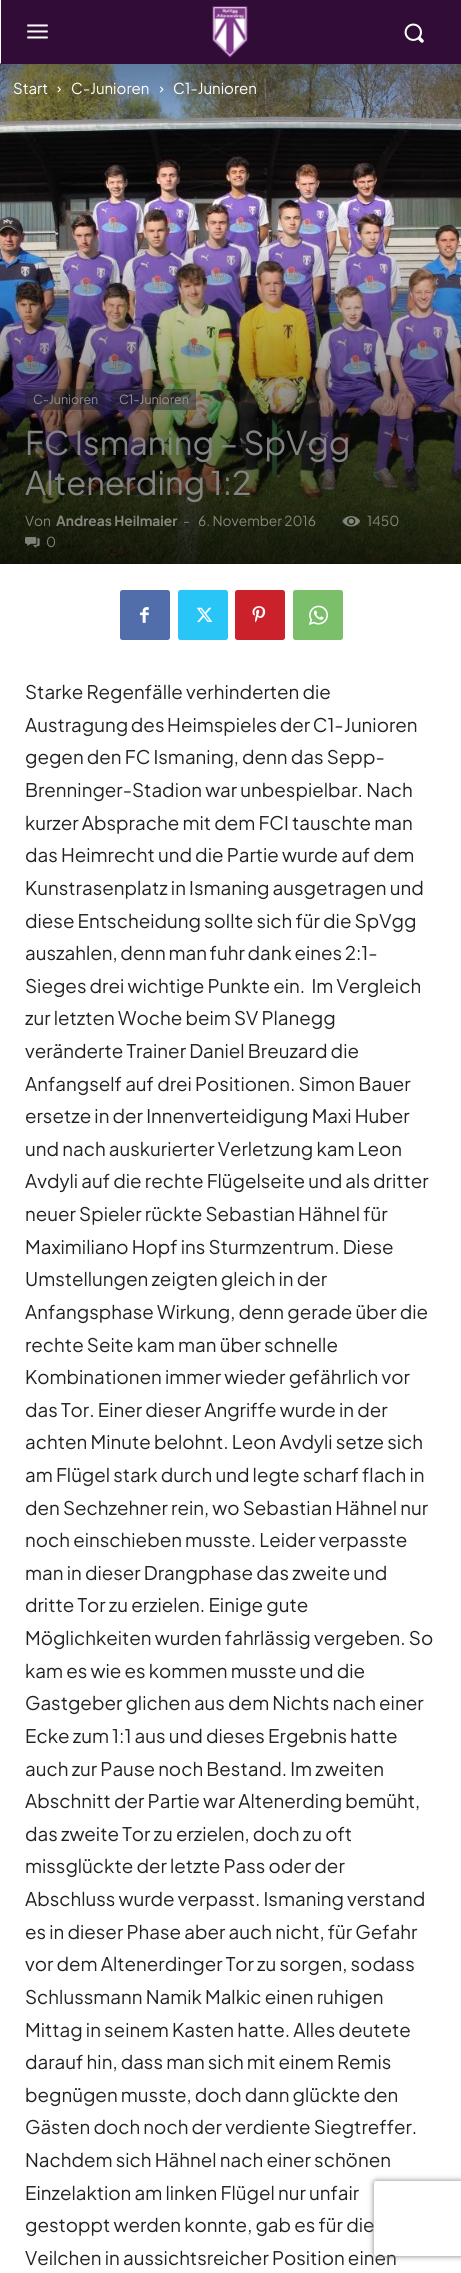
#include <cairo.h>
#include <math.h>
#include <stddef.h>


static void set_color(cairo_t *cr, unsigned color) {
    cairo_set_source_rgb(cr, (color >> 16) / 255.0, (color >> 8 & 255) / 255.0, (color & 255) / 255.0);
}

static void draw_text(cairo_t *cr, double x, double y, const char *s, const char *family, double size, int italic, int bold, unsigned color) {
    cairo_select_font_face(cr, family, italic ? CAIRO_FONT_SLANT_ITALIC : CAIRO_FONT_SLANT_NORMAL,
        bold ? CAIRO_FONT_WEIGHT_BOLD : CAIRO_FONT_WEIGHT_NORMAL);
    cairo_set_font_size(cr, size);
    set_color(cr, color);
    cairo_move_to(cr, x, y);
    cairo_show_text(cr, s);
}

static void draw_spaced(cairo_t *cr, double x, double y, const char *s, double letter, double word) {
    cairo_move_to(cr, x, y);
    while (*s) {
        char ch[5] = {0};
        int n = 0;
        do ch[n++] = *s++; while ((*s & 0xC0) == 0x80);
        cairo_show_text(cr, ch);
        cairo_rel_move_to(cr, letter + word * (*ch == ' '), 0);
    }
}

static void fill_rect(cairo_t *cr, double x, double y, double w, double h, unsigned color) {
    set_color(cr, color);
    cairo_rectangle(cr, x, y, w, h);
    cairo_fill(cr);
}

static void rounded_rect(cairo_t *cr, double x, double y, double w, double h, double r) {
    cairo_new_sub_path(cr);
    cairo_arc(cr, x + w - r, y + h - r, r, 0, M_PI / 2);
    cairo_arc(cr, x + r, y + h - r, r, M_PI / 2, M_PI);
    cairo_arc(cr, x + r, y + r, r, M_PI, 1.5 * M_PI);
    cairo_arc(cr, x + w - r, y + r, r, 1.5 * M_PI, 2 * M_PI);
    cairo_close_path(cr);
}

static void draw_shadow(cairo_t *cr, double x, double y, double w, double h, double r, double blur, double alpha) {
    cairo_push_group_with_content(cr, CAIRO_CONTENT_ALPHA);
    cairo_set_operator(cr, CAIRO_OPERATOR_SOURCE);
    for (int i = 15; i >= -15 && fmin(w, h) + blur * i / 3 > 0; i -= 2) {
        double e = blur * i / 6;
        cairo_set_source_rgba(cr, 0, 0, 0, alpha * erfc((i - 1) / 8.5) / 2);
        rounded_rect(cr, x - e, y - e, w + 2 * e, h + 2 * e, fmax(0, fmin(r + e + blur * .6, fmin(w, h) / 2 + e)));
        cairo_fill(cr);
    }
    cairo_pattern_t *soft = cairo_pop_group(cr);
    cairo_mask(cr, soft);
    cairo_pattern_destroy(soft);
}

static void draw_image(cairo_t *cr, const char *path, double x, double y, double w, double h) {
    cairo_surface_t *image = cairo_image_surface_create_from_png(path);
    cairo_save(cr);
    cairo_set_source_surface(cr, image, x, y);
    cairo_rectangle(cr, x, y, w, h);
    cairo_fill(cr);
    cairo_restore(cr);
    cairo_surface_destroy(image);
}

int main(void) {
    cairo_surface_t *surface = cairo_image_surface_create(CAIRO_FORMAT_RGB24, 461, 2273);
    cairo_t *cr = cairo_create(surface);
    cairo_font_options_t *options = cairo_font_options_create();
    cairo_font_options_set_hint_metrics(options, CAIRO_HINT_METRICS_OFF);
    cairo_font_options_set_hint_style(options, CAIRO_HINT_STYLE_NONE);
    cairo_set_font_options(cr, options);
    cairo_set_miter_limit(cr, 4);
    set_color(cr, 0xFFFFFF);
    cairo_paint(cr);
    draw_image(cr, "assets/img4.png", 0, 63, 461, 501);
    fill_rect(cr, 1, 0, 460, 64, 0x310C36);
    draw_image(cr, "assets/img1.png", 27, 24, 21, 15);
    draw_image(cr, "assets/img2.png", 212, 6, 36, 52);
    draw_image(cr, "assets/img3.png", 404, 23, 20, 20);
    draw_text(cr, 13, 94, "Start", "Plus Jakarta Sans", 15, 0, 0, 0xFFFFFF);
    draw_image(cr, "assets/img5.png", 57, 86, 4, 7);
    draw_text(cr, 71, 94, "C-Junioren", "Plus Jakarta Sans", 15, 0, 0, 0xFFFFFF);
    draw_image(cr, "assets/img6.png", 160, 86, 4, 7);
    draw_text(cr, 173, 94, "C1-Junioren", "Plus Jakarta Sans", 15, 0, 0, 0xFFFFFF);
    cairo_set_source_rgba(cr, 0.133, 0.133, 0.133, 0.45);
    cairo_rectangle(cr, 25, 389, 80, 21);
    cairo_fill(cr);
    draw_text(cr, 33, 404, "C-Junioren", "Plus Jakarta Sans", 12.5, 0, 0, 0x8E8A90);
    cairo_set_source_rgba(cr, 0.133, 0.133, 0.133, 0.45);
    cairo_rectangle(cr, 111, 389, 85, 21);
    cairo_fill(cr);
    draw_text(cr, 119, 404, "C1-Junioren", "Plus Jakarta Sans", 12.5, 0, 0, 0x959293);
    draw_text(cr, 25, 455, "FC Ismaning – SpVgg", "Plus Jakarta Sans", 32.5, 0, 0, 0x848383);
    draw_text(cr, 25, 495, "Altenerding 1:2", "Plus Jakarta Sans", 32.5, 0, 0, 0x848383);
    draw_text(cr, 25, 526, "Von", "Plus Jakarta Sans", 13.75, 0, 0, 0x83867B);
    draw_text(cr, 56, 526, "Andreas Heilmaier", "Plus Jakarta Sans", 13.75, 0, 1, 0x83867B);
    draw_text(cr, 183, 526, "-", "Plus Jakarta Sans", 13.75, 0, 0, 0x868982);
    draw_text(cr, 198, 526, "6. November 2016", "Plus Jakarta Sans", 13.75, 0, 0, 0x83867B);
    draw_image(cr, "assets/img7.png", 342, 516, 18, 11);
    draw_text(cr, 367, 526, "1450", "Plus Jakarta Sans", 13.75, 0, 0, 0x83867B);
    draw_image(cr, "assets/img8.png", 25, 537, 15, 11);
    draw_text(cr, 46, 547, "0", "Plus Jakarta Sans", 13.75, 0, 0, 0x7D8078);
    set_color(cr, 0x516EAB);
    rounded_rect(cr, 120, 590, 50, 50, 2.5);
    cairo_fill(cr);
    draw_image(cr, "assets/img9.png", 140, 607, 9, 16);
    set_color(cr, 0x29C5F6);
    rounded_rect(cr, 178, 590, 50, 50, 2.5);
    cairo_fill(cr);
    draw_image(cr, "assets/img10.png", 196, 607, 17, 15);
    set_color(cr, 0xCA212A);
    rounded_rect(cr, 235, 590, 50, 50, 2.5);
    cairo_fill(cr);
    draw_image(cr, "assets/img11.png", 252, 606, 14, 17);
    set_color(cr, 0x7BBF6A);
    rounded_rect(cr, 293, 590, 50, 50, 2.5);
    cairo_fill(cr);
    draw_image(cr, "assets/img12.png", 308, 605, 20, 20);
    draw_text(cr, 25, 699, "Starke Regenfälle verhinderten die", "Plus Jakarta Sans", 18.75, 0, 0, 0x222222);
    draw_spaced(cr, 25, 732, "Austragung des Heimspieles der C1-Junioren", 0, -0.5);
    draw_text(cr, 25, 764, "gegen den FC Ismaning, denn das Sepp-", "Plus Jakarta Sans", 18.75, 0, 0, 0x222222);
    draw_text(cr, 25, 797, "Brenninger-Stadion war unbespielbar. Nach", "Plus Jakarta Sans", 18.75, 0, 0, 0x222222);
    draw_text(cr, 25, 830, "kurzer Absprache mit dem FCI tauschte man", "Plus Jakarta Sans", 18.75, 0, 0, 0x222222);
    draw_text(cr, 25, 862, "das Heimrecht und die Partie wurde auf dem", "Plus Jakarta Sans", 18.75, 0, 0, 0x222222);
    draw_text(cr, 25, 895, "Kunstrasenplatz in Ismaning ausgetragen und", "Plus Jakarta Sans", 18.75, 0, 0, 0x222222);
    draw_text(cr, 25, 928, "diese Entscheidung sollte sich für die SpVgg", "Plus Jakarta Sans", 18.75, 0, 0, 0x222222);
    draw_spaced(cr, 25, 960, "auszahlen, denn man fuhr dank eines 2:1-", 0, -0.5);
    draw_text(cr, 25, 993, "Sieges drei wichtige Punkte ein.  Im Vergleich", "Plus Jakarta Sans", 18.75, 0, 0, 0x222222);
    draw_text(cr, 25, 1025, "zur letzten Woche beim SV Planegg", "Plus Jakarta Sans", 18.75, 0, 0, 0x222222);
    draw_text(cr, 25, 1058, "veränderte Trainer Daniel Breuzard die", "Plus Jakarta Sans", 18.75, 0, 0, 0x222222);
    draw_text(cr, 25, 1091, "Anfangself auf drei Positionen. Simon Bauer", "Plus Jakarta Sans", 18.75, 0, 0, 0x222222);
    draw_text(cr, 25, 1123, "ersetze in der Innenverteidigung Maxi Huber", "Plus Jakarta Sans", 18.75, 0, 0, 0x222222);
    draw_text(cr, 25, 1156, "und nach auskurierter Verletzung kam Leon", "Plus Jakarta Sans", 18.75, 0, 0, 0x222222);
    draw_text(cr, 25, 1188, "Avdyli auf die rechte Flügelseite und als dritter", "Plus Jakarta Sans", 18.75, 0, 0, 0x222222);
    draw_text(cr, 25, 1221, "neuer Spieler rückte Sebastian Hähnel für", "Plus Jakarta Sans", 18.75, 0, 0, 0x222222);
    draw_text(cr, 25, 1254, "Maximiliano Hopf ins Sturmzentrum. Diese", "Plus Jakarta Sans", 18.75, 0, 0, 0x222222);
    draw_text(cr, 25, 1286, "Umstellungen zeigten gleich in der", "Plus Jakarta Sans", 18.75, 0, 0, 0x222222);
    draw_text(cr, 25, 1319, "Anfangsphase Wirkung, denn gerade über die", "Plus Jakarta Sans", 18.75, 0, 0, 0x222222);
    draw_text(cr, 25, 1352, "rechte Seite kam man über schnelle", "Plus Jakarta Sans", 18.75, 0, 0, 0x222222);
    draw_text(cr, 25, 1384, "Kombinationen immer wieder gefährlich vor", "Plus Jakarta Sans", 18.75, 0, 0, 0x222222);
    draw_text(cr, 25, 1417, "das Tor. Einer dieser Angriffe wurde in der", "Plus Jakarta Sans", 18.75, 0, 0, 0x222222);
    draw_text(cr, 25, 1449, "achten Minute belohnt. Leon Avdyli setze sich", "Plus Jakarta Sans", 18.75, 0, 0, 0x222222);
    draw_text(cr, 25, 1482, "am Flügel stark durch und legte scharf flach in", "Plus Jakarta Sans", 18.75, 0, 0, 0x222222);
    draw_text(cr, 25, 1515, "den Sechzehner rein, wo Sebastian Hähnel nur", "Plus Jakarta Sans", 18.75, 0, 0, 0x222222);
    draw_text(cr, 25, 1547, "noch einschieben musste. Leider verpasste", "Plus Jakarta Sans", 18.75, 0, 0, 0x222222);
    draw_text(cr, 25, 1580, "man in dieser Drangphase das zweite und", "Plus Jakarta Sans", 18.75, 0, 0, 0x222222);
    draw_text(cr, 25, 1612, "dritte Tor zu erzielen. Einige gute", "Plus Jakarta Sans", 18.75, 0, 0, 0x222222);
    draw_text(cr, 25, 1645, "Möglichkeiten wurden fahrlässig vergeben. So", "Plus Jakarta Sans", 18.75, 0, 0, 0x222222);
    draw_text(cr, 25, 1678, "kam es wie es kommen musste und die", "Plus Jakarta Sans", 18.75, 0, 0, 0x222222);
    draw_text(cr, 25, 1710, "Gastgeber glichen aus dem Nichts nach einer", "Plus Jakarta Sans", 18.75, 0, 0, 0x222222);
    draw_text(cr, 25, 1743, "Ecke zum 1:1 aus und dieses Ergebnis hatte", "Plus Jakarta Sans", 18.75, 0, 0, 0x222222);
    draw_text(cr, 25, 1776, "auch zur Pause noch Bestand. Im zweiten", "Plus Jakarta Sans", 18.75, 0, 0, 0x222222);
    draw_text(cr, 25, 1808, "Abschnitt der Partie war Altenerding bemüht,", "Plus Jakarta Sans", 18.75, 0, 0, 0x222222);
    draw_text(cr, 25, 1841, "das zweite Tor zu erzielen, doch zu oft", "Plus Jakarta Sans", 18.75, 0, 0, 0x222222);
    draw_text(cr, 25, 1873, "missglückte der letzte Pass oder der", "Plus Jakarta Sans", 18.75, 0, 0, 0x222222);
    draw_text(cr, 25, 1906, "Abschluss wurde verpasst. Ismaning verstand", "Plus Jakarta Sans", 18.75, 0, 0, 0x222222);
    draw_text(cr, 25, 1939, "es in dieser Phase aber auch nicht, für Gefahr", "Plus Jakarta Sans", 18.75, 0, 0, 0x222222);
    draw_text(cr, 25, 1971, "vor dem Altenerdinger Tor zu sorgen, sodass", "Plus Jakarta Sans", 18.75, 0, 0, 0x222222);
    draw_text(cr, 25, 2004, "Schlussmann Namik Malkic einen ruhigen", "Plus Jakarta Sans", 18.75, 0, 0, 0x222222);
    draw_text(cr, 25, 2037, "Mittag in seinem Kasten hatte. Alles deutete", "Plus Jakarta Sans", 18.75, 0, 0, 0x222222);
    draw_text(cr, 25, 2069, "darauf hin, dass man sich mit einem Remis", "Plus Jakarta Sans", 18.75, 0, 0, 0x222222);
    draw_text(cr, 25, 2102, "begnügen musste, doch dann glückte den", "Plus Jakarta Sans", 18.75, 0, 0, 0x222222);
    draw_text(cr, 25, 2134, "Gästen doch noch der verdiente Siegtreffer.", "Plus Jakarta Sans", 18.75, 0, 0, 0x222222);
    draw_text(cr, 25, 2167, "Nachdem sich Hähnel nach einer schönen", "Plus Jakarta Sans", 18.75, 0, 0, 0x222222);
    draw_text(cr, 25, 2200, "Einzelaktion am linken Flügel nur unfair", "Plus Jakarta Sans", 18.75, 0, 0, 0x222222);
    draw_text(cr, 25, 2232, "gestoppt werden konnte, gab es für die", "Plus Jakarta Sans", 18.75, 0, 0, 0x222222);
    draw_text(cr, 25, 2265, "Veilchen in aussichtsreicher Position einen", "Plus Jakarta Sans", 18.75, 0, 0, 0x222222);
    cairo_save(cr);
    cairo_set_fill_rule(cr, CAIRO_FILL_RULE_EVEN_ODD);
    cairo_new_path(cr);
    cairo_move_to(cr, 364, 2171);
    cairo_line_to(cr, 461, 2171);
    cairo_line_to(cr, 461, 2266);
    cairo_line_to(cr, 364, 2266);
    cairo_close_path(cr);
    cairo_move_to(cr, 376.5, 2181);
    cairo_line_to(cr, 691.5, 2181);
    cairo_curve_to(cr, 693, 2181, 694, 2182, 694, 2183.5);
    cairo_line_to(cr, 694, 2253.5);
    cairo_curve_to(cr, 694, 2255, 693, 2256, 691.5, 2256);
    cairo_line_to(cr, 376.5, 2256);
    cairo_curve_to(cr, 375, 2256, 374, 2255, 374, 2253.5);
    cairo_line_to(cr, 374, 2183.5);
    cairo_curve_to(cr, 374, 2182, 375, 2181, 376.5, 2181);
    cairo_close_path(cr);
    cairo_clip(cr);
    set_color(cr, 0x808080);
    draw_shadow(cr, 374, 2181, 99, 75, 2.5, 3, 1);
    cairo_restore(cr);
    cairo_surface_write_to_png(surface, "output.png");
    cairo_font_options_destroy(options);
    cairo_destroy(cr);
    cairo_surface_destroy(surface);
    return 0;
}
